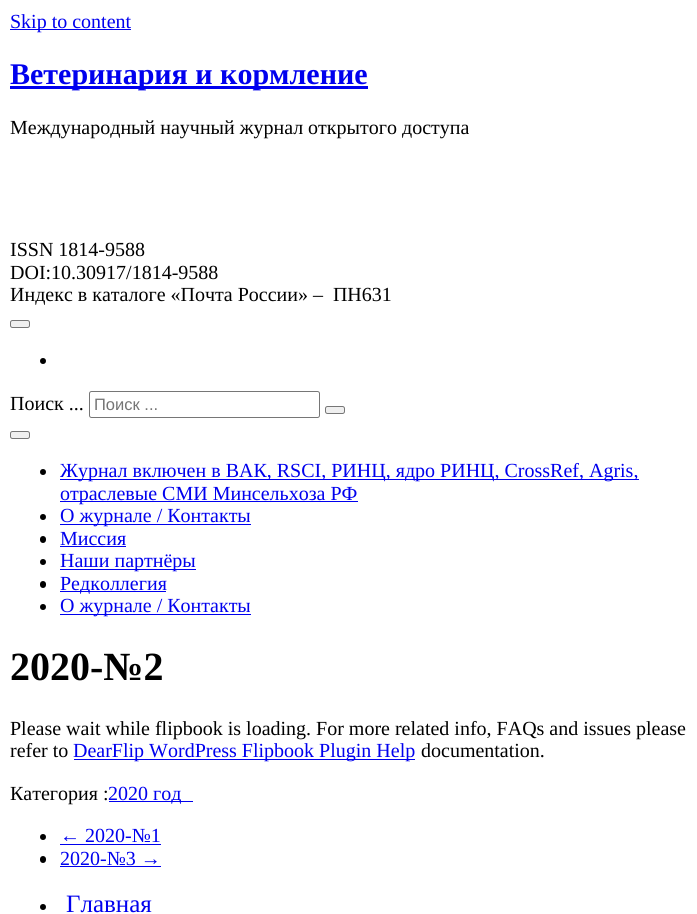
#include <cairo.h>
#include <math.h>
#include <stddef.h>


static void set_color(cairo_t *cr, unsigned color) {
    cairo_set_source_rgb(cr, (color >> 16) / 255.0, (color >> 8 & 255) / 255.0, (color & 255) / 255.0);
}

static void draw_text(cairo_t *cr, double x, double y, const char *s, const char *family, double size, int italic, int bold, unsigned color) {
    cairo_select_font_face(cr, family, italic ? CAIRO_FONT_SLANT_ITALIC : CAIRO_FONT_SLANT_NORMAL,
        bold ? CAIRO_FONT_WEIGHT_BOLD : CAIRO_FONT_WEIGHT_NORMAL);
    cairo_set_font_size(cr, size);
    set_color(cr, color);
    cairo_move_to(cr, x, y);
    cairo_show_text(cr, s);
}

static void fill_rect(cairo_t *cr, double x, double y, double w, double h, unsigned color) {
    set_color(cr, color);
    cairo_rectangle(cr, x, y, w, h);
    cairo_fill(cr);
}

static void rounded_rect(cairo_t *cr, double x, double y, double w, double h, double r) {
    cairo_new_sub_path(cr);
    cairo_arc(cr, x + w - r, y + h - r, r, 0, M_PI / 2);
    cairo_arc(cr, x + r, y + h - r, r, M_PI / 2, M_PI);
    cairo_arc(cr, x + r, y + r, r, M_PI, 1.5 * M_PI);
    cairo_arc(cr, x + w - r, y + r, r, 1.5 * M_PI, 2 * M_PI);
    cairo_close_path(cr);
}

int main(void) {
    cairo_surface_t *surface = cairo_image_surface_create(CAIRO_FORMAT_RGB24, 697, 914);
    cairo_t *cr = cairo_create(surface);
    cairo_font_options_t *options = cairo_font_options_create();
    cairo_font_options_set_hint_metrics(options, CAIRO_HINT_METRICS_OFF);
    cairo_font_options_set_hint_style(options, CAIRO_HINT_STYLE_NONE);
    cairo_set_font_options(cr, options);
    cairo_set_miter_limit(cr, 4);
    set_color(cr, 0xFFFFFF);
    cairo_paint(cr);
    fill_rect(cr, 10, 29, 121, 1, 0x0000EE);
    draw_text(cr, 10, 28, "Skip to content", "Liberation Serif", 20, 0, 0, 0x0000EE);
    fill_rect(cr, 10, 86, 358, 3, 0x0000EE);
    draw_text(cr, 10, 84, "Ветеринария и кормление", "Liberation Serif", 30, 0, 1, 0x0000EE);
    draw_text(cr, 10, 134, "Международный научный журнал открытого доступа", "Liberation Serif", 20, 0, 0, 0x000000);
    draw_text(cr, 10, 256, "ISSN 1814-9588", "Liberation Serif", 20, 0, 0, 0x000000);
    draw_text(cr, 10, 279, "DOI:10.30917/1814-9588", "Liberation Serif", 20, 0, 0, 0x000000);
    draw_text(cr, 10, 301, "Индекс в каталоге «Почта России» –  ПН631", "Liberation Serif", 20, 0, 0, 0x000000);
    set_color(cr, 0xEFEFEF);
    rounded_rect(cr, 10.5, 320.5, 19, 7, 2);
    cairo_fill_preserve(cr);
    set_color(cr, 0x767676);
    cairo_set_line_width(cr, 1);
    cairo_stroke(cr);
    set_color(cr, 0x000000);
    cairo_arc(cr, 43, 361, 3, 0, 2 * M_PI);
    cairo_fill(cr);
    draw_text(cr, 10, 410, "Поиск ...", "Liberation Serif", 20, 0, 0, 0x000000);
    rounded_rect(cr, 89.5, 391.5, 230, 26, 2);
    set_color(cr, 0x767676);
    cairo_stroke(cr);
    draw_text(cr, 94, 410, "Поиск ...", "Liberation Sans", 16.5, 0, 0, 0x757575);
    set_color(cr, 0xEFEFEF);
    rounded_rect(cr, 325.5, 406.5, 19, 7, 2);
    cairo_fill_preserve(cr);
    set_color(cr, 0x767676);
    cairo_stroke(cr);
    set_color(cr, 0xEFEFEF);
    rounded_rect(cr, 10.5, 431.5, 19, 7, 2);
    cairo_fill_preserve(cr);
    set_color(cr, 0x767676);
    cairo_stroke(cr);
    set_color(cr, 0x000000);
    cairo_arc(cr, 43, 472, 3, 0, 2 * M_PI);
    cairo_fill(cr);
    fill_rect(cr, 60, 479, 579, 1, 0x0000EE);
    draw_text(cr, 60, 477, "Журнал включен в ВАК, RSCI, РИНЦ, ядро РИНЦ, CrossRef, Agris,", "Liberation Serif", 20, 0, 0, 0x0000EE);
    fill_rect(cr, 60, 501, 298, 1, 0x0000EE);
    draw_text(cr, 60, 500, "отраслевые СМИ Минсельхоза РФ", "Liberation Serif", 20, 0, 0, 0x0000EE);
    set_color(cr, 0x000000);
    cairo_new_path(cr);
    cairo_arc(cr, 43, 517, 3, 0, 2 * M_PI);
    cairo_fill(cr);
    fill_rect(cr, 60, 524, 191, 1, 0x0000EE);
    draw_text(cr, 60, 522, "О журнале / Контакты", "Liberation Serif", 20, 0, 0, 0x0000EE);
    set_color(cr, 0x000000);
    rounded_rect(cr, 40, 536, 6, 7, 3);
    cairo_fill(cr);
    draw_text(cr, 60, 545, "Миссия", "Liberation Serif", 20, 0, 0, 0x0000EE);
    fill_rect(cr, 60, 546, 66, 1, 0x0000EE);
    set_color(cr, 0x000000);
    cairo_new_path(cr);
    cairo_arc(cr, 43, 562, 3, 0, 2 * M_PI);
    cairo_fill(cr);
    fill_rect(cr, 60, 569, 136, 1, 0x0000EE);
    draw_text(cr, 60, 567, "Наши партнёры", "Liberation Serif", 20, 0, 0, 0x0000EE);
    set_color(cr, 0x000000);
    rounded_rect(cr, 40, 581, 6, 7, 3);
    cairo_fill(cr);
    fill_rect(cr, 60, 591, 106, 1, 0x0000EE);
    draw_text(cr, 60, 590, "Редколлегия", "Liberation Serif", 20, 0, 0, 0x0000EE);
    set_color(cr, 0x000000);
    cairo_new_path(cr);
    cairo_arc(cr, 43, 607, 3, 0, 2 * M_PI);
    cairo_fill(cr);
    fill_rect(cr, 60, 614, 191, 1, 0x0000EE);
    draw_text(cr, 60, 612, "О журнале / Контакты", "Liberation Serif", 20, 0, 0, 0x0000EE);
    draw_text(cr, 10, 680, "2020-№2", "Liberation Serif", 40, 0, 1, 0x000000);
    draw_text(cr, 10, 735, "Please wait while flipbook is loading. For more related info, FAQs and issues please", "Liberation Serif", 20, 0, 0, 0x000000);
    draw_text(cr, 10, 757, "refer to", "Liberation Serif", 20, 0, 0, 0x000000);
    fill_rect(cr, 74, 759, 341, 1, 0x0000EE);
    draw_text(cr, 73, 757, "DearFlip WordPress Flipbook Plugin Help", "Liberation Serif", 20, 0, 0, 0x0000EE);
    draw_text(cr, 421, 757, "documentation.", "Liberation Serif", 20, 0, 0, 0x000000);
    draw_text(cr, 10, 800, "Категория :", "Liberation Serif", 20, 0, 0, 0x000000);
    fill_rect(cr, 109, 801, 84, 1, 0x0000EE);
    draw_text(cr, 108, 800, "2020 год", "Liberation Serif", 20, 0, 0, 0x0000EE);
    set_color(cr, 0x000000);
    cairo_new_path(cr);
    cairo_arc(cr, 43, 837, 3, 0, 2 * M_PI);
    cairo_fill(cr);
    draw_text(cr, 60, 842, "← 2020-№1", "Liberation Serif", 20, 0, 0, 0x0000EE);
    fill_rect(cr, 60, 844, 101, 1, 0x0000EE);
    set_color(cr, 0x000000);
    rounded_rect(cr, 40, 856, 6, 7, 3);
    cairo_fill(cr);
    draw_text(cr, 60, 865, "2020-№3 →", "Liberation Serif", 20, 0, 0, 0x0000EE);
    fill_rect(cr, 60, 866, 101, 1, 0x0000EE);
    set_color(cr, 0x000000);
    cairo_new_path(cr);
    cairo_arc(cr, 43, 907, 3, 0, 2 * M_PI);
    cairo_fill(cr);
    draw_text(cr, 66, 912, "Главная", "Liberation Serif", 25, 0, 0, 0x0000EE);
    cairo_surface_write_to_png(surface, "output.png");
    cairo_font_options_destroy(options);
    cairo_destroy(cr);
    cairo_surface_destroy(surface);
    return 0;
}
